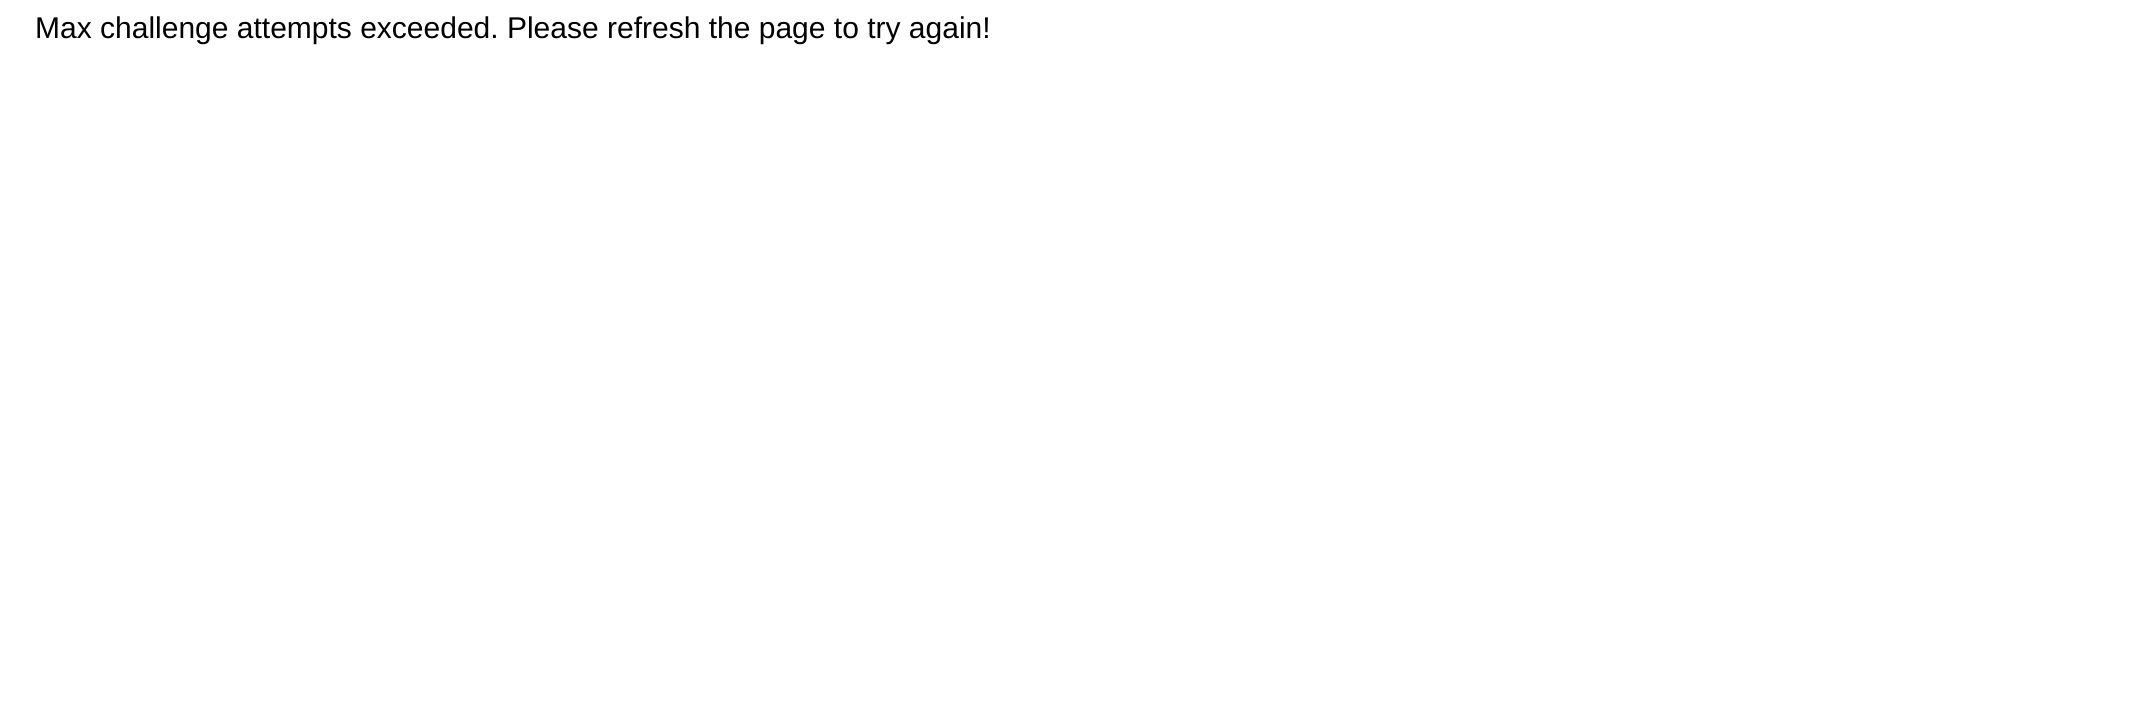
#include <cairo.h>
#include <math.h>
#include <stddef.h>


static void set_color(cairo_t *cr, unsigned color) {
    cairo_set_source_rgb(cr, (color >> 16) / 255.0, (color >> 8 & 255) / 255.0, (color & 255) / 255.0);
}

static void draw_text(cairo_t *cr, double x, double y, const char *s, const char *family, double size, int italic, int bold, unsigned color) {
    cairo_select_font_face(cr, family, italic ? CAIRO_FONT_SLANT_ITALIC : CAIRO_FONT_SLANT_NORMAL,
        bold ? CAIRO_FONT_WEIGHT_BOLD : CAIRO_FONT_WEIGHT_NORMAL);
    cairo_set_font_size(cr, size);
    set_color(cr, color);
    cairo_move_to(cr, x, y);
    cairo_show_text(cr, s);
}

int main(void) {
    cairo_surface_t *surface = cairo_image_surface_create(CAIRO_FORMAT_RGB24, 2149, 726);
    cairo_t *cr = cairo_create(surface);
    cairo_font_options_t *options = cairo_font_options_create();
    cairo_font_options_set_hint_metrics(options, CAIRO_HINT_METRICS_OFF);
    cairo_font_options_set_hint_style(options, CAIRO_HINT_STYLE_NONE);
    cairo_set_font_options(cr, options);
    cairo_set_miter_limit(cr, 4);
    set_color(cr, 0xFFFFFF);
    cairo_paint(cr);
    draw_text(cr, 35, 38, "Max challenge attempts exceeded. Please refresh the page to try again!", "Liberation Sans", 30, 0, 0, 0x000000);
    cairo_surface_write_to_png(surface, "output.png");
    cairo_font_options_destroy(options);
    cairo_destroy(cr);
    cairo_surface_destroy(surface);
    return 0;
}
